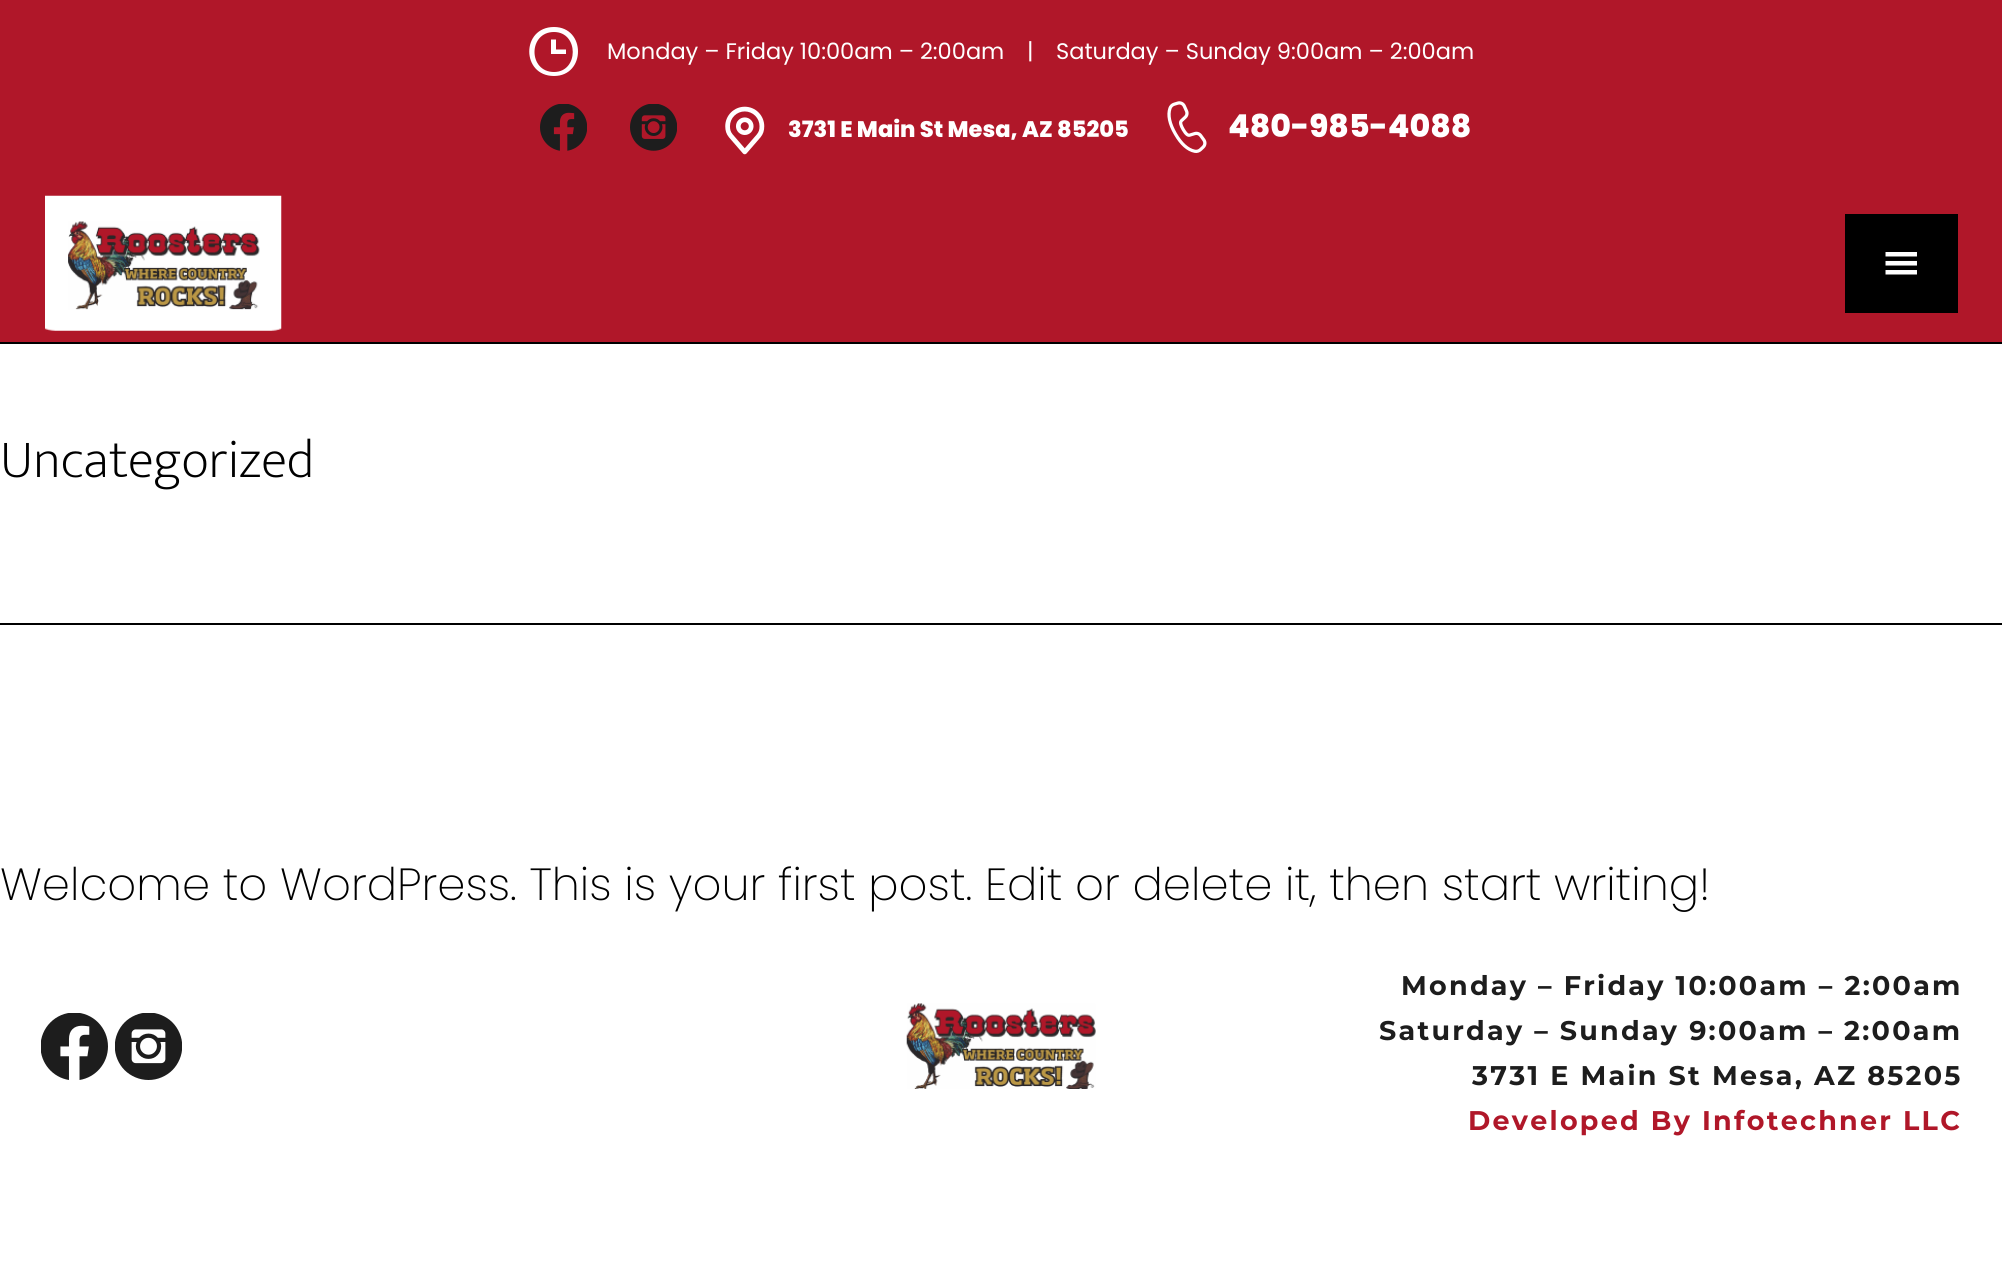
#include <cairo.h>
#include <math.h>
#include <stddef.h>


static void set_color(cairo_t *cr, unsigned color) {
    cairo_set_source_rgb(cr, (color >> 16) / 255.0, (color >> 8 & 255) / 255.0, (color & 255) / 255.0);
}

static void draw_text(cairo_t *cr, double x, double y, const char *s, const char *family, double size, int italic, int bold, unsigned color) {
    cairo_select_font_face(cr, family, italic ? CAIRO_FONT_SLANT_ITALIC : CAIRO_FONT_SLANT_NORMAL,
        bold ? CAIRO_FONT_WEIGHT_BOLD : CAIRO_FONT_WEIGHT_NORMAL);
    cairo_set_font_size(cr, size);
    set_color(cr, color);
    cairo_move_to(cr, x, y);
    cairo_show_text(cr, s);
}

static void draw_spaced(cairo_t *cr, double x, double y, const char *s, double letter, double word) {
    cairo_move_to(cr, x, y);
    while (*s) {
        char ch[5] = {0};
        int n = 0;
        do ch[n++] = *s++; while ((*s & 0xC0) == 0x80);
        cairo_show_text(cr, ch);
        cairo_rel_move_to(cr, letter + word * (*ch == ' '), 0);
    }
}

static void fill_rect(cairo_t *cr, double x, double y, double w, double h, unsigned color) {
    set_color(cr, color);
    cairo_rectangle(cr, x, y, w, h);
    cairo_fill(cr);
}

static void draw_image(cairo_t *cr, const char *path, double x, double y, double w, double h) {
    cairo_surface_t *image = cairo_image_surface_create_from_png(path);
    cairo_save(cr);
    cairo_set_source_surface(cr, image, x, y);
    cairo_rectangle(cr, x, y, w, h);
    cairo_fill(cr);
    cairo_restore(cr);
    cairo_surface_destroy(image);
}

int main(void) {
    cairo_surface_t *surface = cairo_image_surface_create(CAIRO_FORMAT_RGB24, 2002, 1265);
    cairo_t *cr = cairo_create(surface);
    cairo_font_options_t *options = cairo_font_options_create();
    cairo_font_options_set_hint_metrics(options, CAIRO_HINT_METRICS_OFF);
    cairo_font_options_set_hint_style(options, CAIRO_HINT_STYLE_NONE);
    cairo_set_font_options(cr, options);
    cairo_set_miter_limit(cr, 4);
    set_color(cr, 0xFFFFFF);
    cairo_paint(cr);
    fill_rect(cr, 0, 0, 2002, 342, 0xB01729);
    draw_image(cr, "assets/img1.png", 45, 195, 237, 136);
    fill_rect(cr, 1845, 214, 113, 99, 0x000000);
    draw_image(cr, "assets/img2.png", 1885, 252, 32, 23);
    set_color(cr, 0xFFFFFF);
    cairo_new_path(cr);
    cairo_move_to(cr, 554, 27);
    cairo_curve_to(cr, 521, 27, 521, 76, 554, 76);
    cairo_curve_to(cr, 586, 76, 586, 27, 554, 27);
    cairo_close_path(cr);
    cairo_move_to(cr, 554, 72);
    cairo_curve_to(cr, 528, 72, 528, 32, 554, 32);
    cairo_curve_to(cr, 579, 32, 579, 72, 554, 72);
    cairo_close_path(cr);
    cairo_fill(cr);
    cairo_new_path(cr);
    cairo_move_to(cr, 556, 39.5);
    cairo_line_to(cr, 551, 39.5);
    cairo_line_to(cr, 551, 54);
    cairo_line_to(cr, 566, 54);
    cairo_line_to(cr, 566, 49.5);
    cairo_line_to(cr, 556, 49.5);
    cairo_close_path(cr);
    cairo_fill(cr);
    draw_text(cr, 607, 59, "Monday – Friday 10:00am – 2:00am", "Poppins", 22.5, 0, 0, 0xFFFFFF);
    draw_text(cr, 1027, 59, "|", "Poppins", 22.5, 0, 0, 0xFFFFFF);
    draw_text(cr, 1056, 59, "Saturday – Sunday 9:00am – 2:00am", "Poppins", 22.5, 0, 0, 0xFFFFFF);
    draw_image(cr, "assets/img3.png", 540, 104, 47, 47);
    draw_image(cr, "assets/img4.png", 630, 104, 47, 47);
    draw_image(cr, "assets/img5.png", 725, 106, 40, 49);
    draw_text(cr, 788, 137, "3731 E Main St Mesa, AZ 85205", "Poppins ExtraBold", 22.5, 0, 0, 0xFFFFFF);
    draw_image(cr, "assets/img6.png", 1167, 101, 40, 52);
    draw_text(cr, 1228, 137, "480-985-4088", "Poppins ExtraBold", 31.5, 0, 0, 0xFFFFFF);
    fill_rect(cr, 0, 342, 2002, 2, 0x000000);
    fill_rect(cr, 0, 623, 2002, 2, 0x000000);
    draw_text(cr, 0, 477, "Uncategorized", "Ek Mukta ExtraLight", 54, 0, 0, 0x000000);
    draw_text(cr, 0, 900, "Welcome to WordPress. This is your first post. Edit or delete it, then start writing!", "Poppins ExtraLight", 45, 0, 0, 0x000000);
    draw_image(cr, "assets/img7.png", 41, 1013, 67, 67);
    draw_image(cr, "assets/img8.png", 115, 1013, 67, 67);
    draw_image(cr, "assets/img9.png", 906, 1003, 190, 86);
    cairo_select_font_face(cr, "Montserrat", CAIRO_FONT_SLANT_NORMAL, CAIRO_FONT_WEIGHT_BOLD);
    cairo_set_font_size(cr, 27);
    set_color(cr, 0x1D1D1D);
    draw_spaced(cr, 1401, 995, "Monday – Friday 10:00am – 2:00am", 2.25, 0);
    draw_spaced(cr, 1379, 1040, "Saturday – Sunday 9:00am – 2:00am", 2.25, 0);
    draw_spaced(cr, 1472, 1085, "3731 E Main St Mesa, AZ 85205", 2.25, 0);
    set_color(cr, 0xB01729);
    draw_spaced(cr, 1468, 1130, "Developed By Infotechner LLC", 2.25, 0);
    cairo_surface_write_to_png(surface, "output.png");
    cairo_font_options_destroy(options);
    cairo_destroy(cr);
    cairo_surface_destroy(surface);
    return 0;
}
